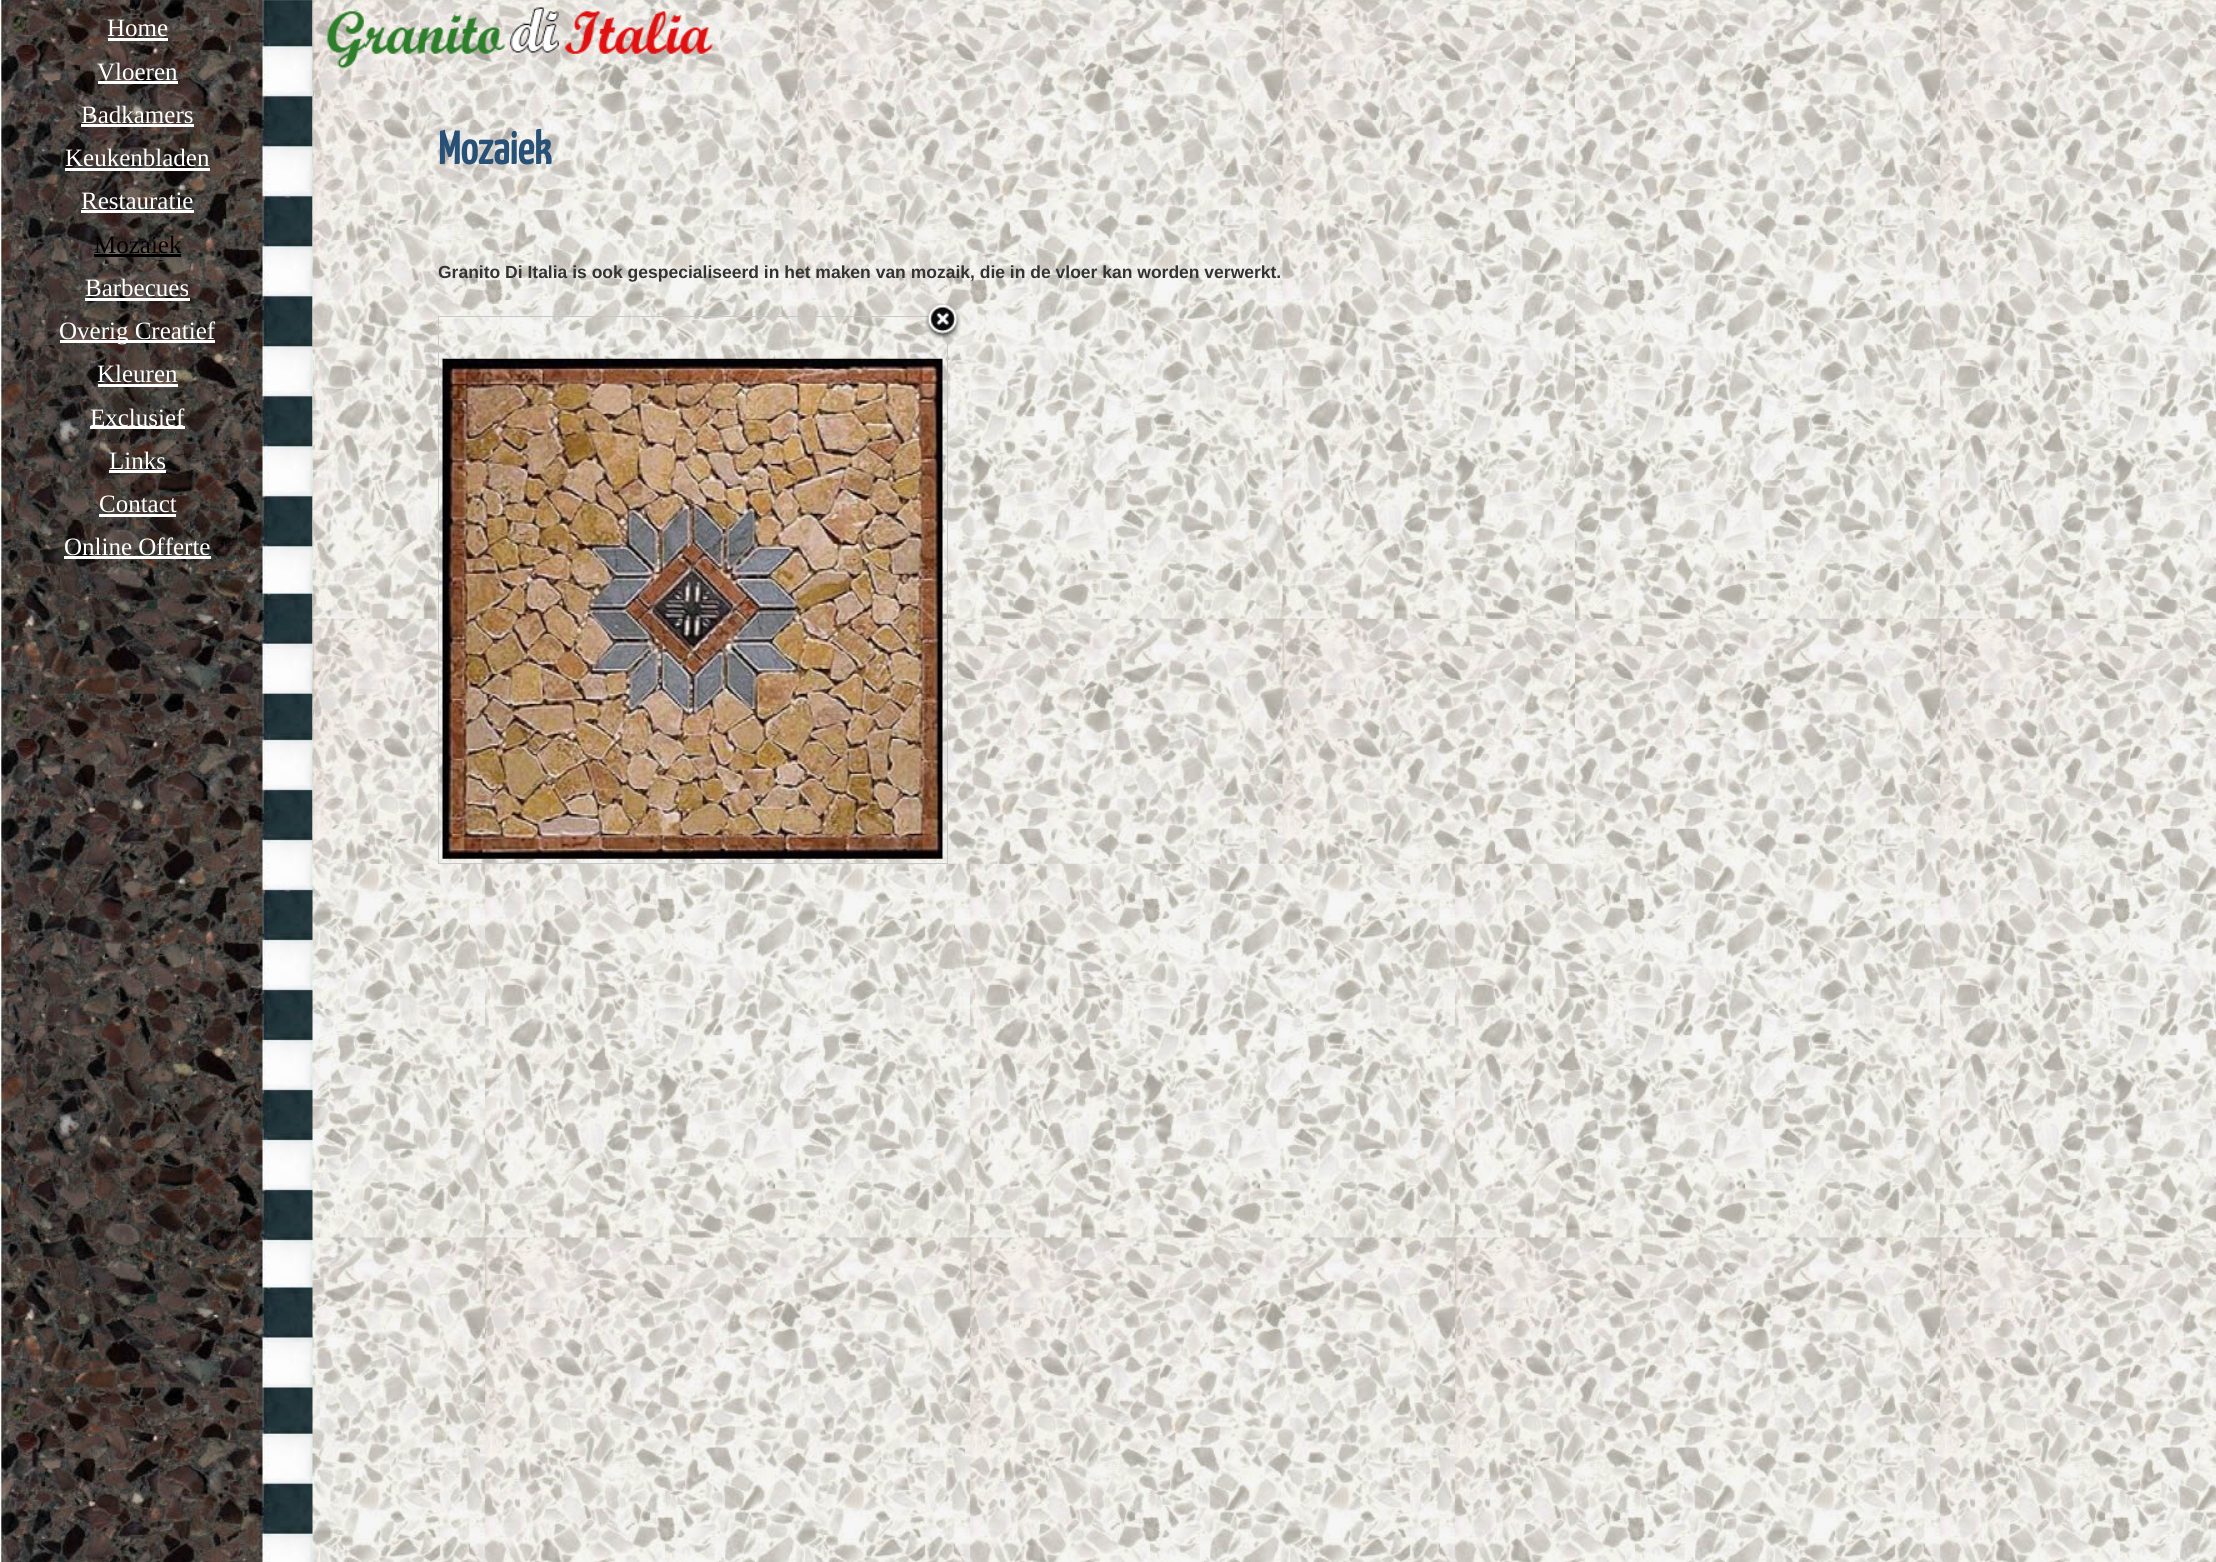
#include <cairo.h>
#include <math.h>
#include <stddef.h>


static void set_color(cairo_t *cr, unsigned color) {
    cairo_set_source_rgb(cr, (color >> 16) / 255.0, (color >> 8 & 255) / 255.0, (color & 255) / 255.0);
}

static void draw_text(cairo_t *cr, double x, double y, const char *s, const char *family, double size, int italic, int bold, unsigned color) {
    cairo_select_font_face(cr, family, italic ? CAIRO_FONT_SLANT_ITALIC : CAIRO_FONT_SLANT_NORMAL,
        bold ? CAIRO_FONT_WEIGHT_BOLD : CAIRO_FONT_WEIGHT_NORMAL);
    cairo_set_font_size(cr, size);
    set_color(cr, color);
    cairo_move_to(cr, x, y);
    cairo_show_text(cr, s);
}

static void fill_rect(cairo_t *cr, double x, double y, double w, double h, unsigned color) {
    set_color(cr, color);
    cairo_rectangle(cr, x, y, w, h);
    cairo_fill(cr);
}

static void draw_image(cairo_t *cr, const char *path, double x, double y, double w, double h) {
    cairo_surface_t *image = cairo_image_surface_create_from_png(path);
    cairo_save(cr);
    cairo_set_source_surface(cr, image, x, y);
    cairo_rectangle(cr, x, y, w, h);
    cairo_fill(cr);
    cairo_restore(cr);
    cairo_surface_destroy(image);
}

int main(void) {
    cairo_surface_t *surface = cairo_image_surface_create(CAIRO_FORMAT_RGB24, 2216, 1562);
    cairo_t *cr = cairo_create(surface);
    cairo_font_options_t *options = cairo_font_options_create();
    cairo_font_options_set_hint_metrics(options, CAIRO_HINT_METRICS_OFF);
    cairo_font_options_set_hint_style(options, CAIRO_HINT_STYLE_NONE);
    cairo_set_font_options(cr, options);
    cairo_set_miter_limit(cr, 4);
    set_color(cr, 0xFFFFFF);
    cairo_paint(cr);
    draw_image(cr, "assets/img1.png", 312, 0, 1904, 1562);
    draw_image(cr, "assets/img2.png", 0, 0, 313, 1562);
    draw_text(cr, 107, 36, "Home", "Liberation Serif", 25, 0, 0, 0xFFFFFF);
    fill_rect(cr, 108, 38, 60, 3, 0xFFFFFF);
    draw_text(cr, 97, 80, "Vloeren", "Liberation Serif", 25, 0, 0, 0xFFFFFF);
    fill_rect(cr, 98, 81, 80, 3, 0xFFFFFF);
    draw_text(cr, 81, 123, "Badkamers", "Liberation Serif", 25, 0, 0, 0xFFFFFF);
    fill_rect(cr, 81, 124, 113, 3, 0xFFFFFF);
    draw_text(cr, 65, 166, "Keukenbladen", "Liberation Serif", 25, 0, 0, 0xFFFFFF);
    fill_rect(cr, 65, 168, 145, 3, 0xFFFFFF);
    draw_text(cr, 81, 209, "Restauratie", "Liberation Serif", 25, 0, 0, 0xFFFFFF);
    fill_rect(cr, 81, 210, 113, 3, 0xFFFFFF);
    draw_text(cr, 94, 253, "Mozaiek", "Liberation Serif", 25, 0, 0, 0x000000);
    fill_rect(cr, 94, 254, 87, 3, 0x000000);
    draw_text(cr, 85, 296, "Barbecues", "Liberation Serif", 25, 0, 0, 0xFFFFFF);
    fill_rect(cr, 85, 298, 105, 3, 0xFFFFFF);
    fill_rect(cr, 60, 340, 155, 3, 0xFFFFFF);
    draw_text(cr, 59, 339, "Overig Creatief", "Liberation Serif", 25, 0, 0, 0xFFFFFF);
    draw_text(cr, 97, 382, "Kleuren", "Liberation Serif", 25, 0, 0, 0xFFFFFF);
    fill_rect(cr, 98, 384, 80, 3, 0xFFFFFF);
    fill_rect(cr, 90, 426, 95, 3, 0xFFFFFF);
    draw_text(cr, 90, 426, "Exclusief", "Liberation Serif", 25, 0, 0, 0xFFFFFF);
    draw_text(cr, 109, 469, "Links", "Liberation Serif", 25, 0, 0, 0xFFFFFF);
    fill_rect(cr, 109, 470, 57, 3, 0xFFFFFF);
    draw_text(cr, 99, 512, "Contact", "Liberation Serif", 25, 0, 0, 0xFFFFFF);
    fill_rect(cr, 99, 514, 77, 3, 0xFFFFFF);
    draw_text(cr, 64, 555, "Online Offerte", "Liberation Serif", 25, 0, 0, 0xFFFFFF);
    fill_rect(cr, 64, 556, 147, 3, 0xFFFFFF);
    draw_image(cr, "assets/img3.png", 312, 0, 1263, 864);
    draw_image(cr, "assets/img4.png", 327, 7, 386, 61);
    draw_text(cr, 438, 164, "Mozaiek", "Yanone Kaffeesatz", 46, 0, 1, 0x275176);
    draw_text(cr, 438, 278, "Granito Di Italia is ook gespecialiseerd in het maken van mozaik, die in de vloer kan worden verwerkt.", "Liberation Sans", 17.5, 0, 1, 0x333333);
    cairo_rectangle(cr, 438.5, 316.5, 509, 547);
    set_color(cr, 0xC7C7C7);
    cairo_set_line_width(cr, 1);
    cairo_stroke(cr);
    draw_image(cr, "assets/img5.png", 924, 303, 37, 36);
    draw_image(cr, "assets/img6.png", 442, 358, 501, 501);
    cairo_surface_write_to_png(surface, "output.png");
    cairo_font_options_destroy(options);
    cairo_destroy(cr);
    cairo_surface_destroy(surface);
    return 0;
}
